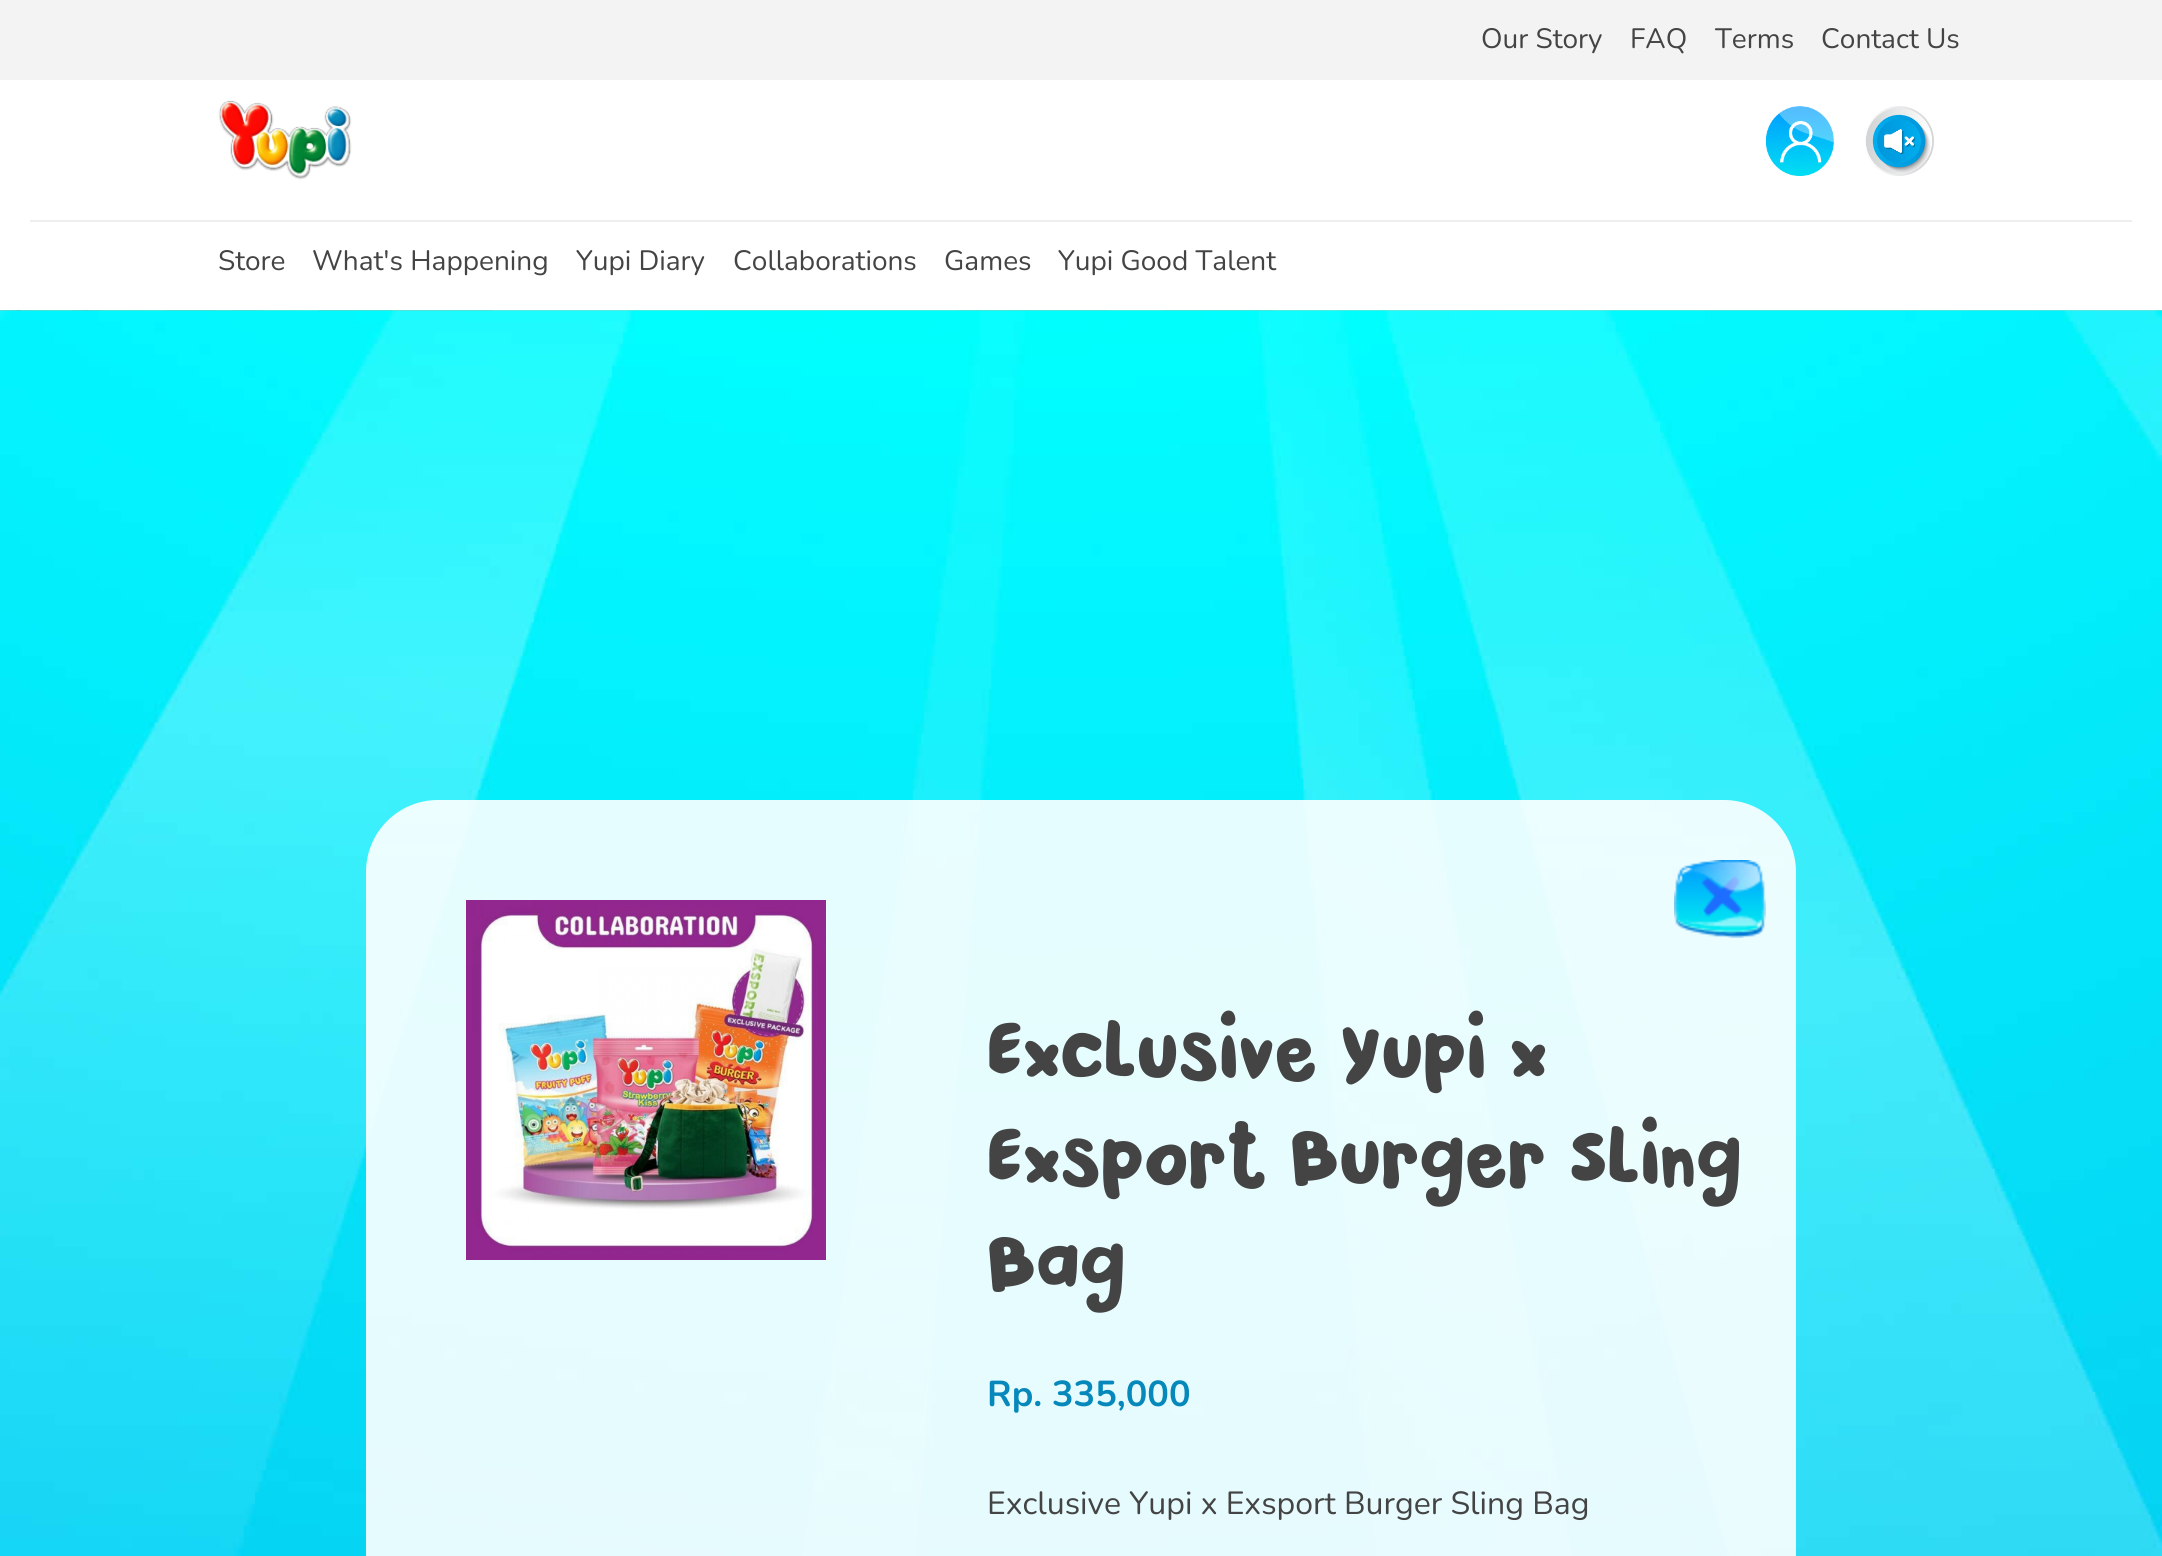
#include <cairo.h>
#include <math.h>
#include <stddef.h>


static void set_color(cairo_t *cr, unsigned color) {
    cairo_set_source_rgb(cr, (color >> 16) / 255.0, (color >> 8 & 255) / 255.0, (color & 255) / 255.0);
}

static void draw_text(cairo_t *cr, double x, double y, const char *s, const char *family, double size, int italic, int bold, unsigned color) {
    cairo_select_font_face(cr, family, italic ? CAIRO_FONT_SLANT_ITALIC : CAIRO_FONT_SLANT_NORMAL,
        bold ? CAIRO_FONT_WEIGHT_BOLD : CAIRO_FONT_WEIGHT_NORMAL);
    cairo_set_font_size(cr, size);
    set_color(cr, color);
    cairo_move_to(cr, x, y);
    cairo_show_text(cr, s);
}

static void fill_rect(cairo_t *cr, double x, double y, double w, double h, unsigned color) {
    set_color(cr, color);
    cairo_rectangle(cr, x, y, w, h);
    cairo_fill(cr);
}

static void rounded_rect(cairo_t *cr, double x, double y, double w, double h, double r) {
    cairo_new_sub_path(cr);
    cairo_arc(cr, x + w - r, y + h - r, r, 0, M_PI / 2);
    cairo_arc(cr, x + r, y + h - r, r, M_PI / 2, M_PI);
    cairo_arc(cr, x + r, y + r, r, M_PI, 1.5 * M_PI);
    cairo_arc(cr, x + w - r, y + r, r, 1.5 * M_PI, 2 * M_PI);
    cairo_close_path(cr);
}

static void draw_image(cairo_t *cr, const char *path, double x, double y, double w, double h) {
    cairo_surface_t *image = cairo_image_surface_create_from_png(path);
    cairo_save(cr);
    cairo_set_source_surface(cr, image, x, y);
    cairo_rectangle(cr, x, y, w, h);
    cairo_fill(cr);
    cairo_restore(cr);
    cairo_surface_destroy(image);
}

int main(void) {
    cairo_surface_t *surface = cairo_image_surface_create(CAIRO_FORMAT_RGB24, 2162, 1556);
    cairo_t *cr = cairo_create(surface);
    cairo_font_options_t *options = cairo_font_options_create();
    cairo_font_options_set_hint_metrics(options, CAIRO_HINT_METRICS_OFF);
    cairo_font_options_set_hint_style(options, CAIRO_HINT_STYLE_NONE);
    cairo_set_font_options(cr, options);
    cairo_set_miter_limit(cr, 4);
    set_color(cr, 0xFFFFFF);
    cairo_paint(cr);
    fill_rect(cr, 0, 0, 2162, 80, 0xF3F3F3);
    draw_text(cr, 1481, 48, "Our Story", "Nunito", 28, 0, 0, 0x444444);
    draw_text(cr, 1630, 48, "FAQ", "Nunito", 28, 0, 0, 0x444444);
    draw_text(cr, 1715, 48, "Terms", "Nunito", 28, 0, 0, 0x444444);
    draw_text(cr, 1821, 48, "Contact Us", "Nunito", 28, 0, 0, 0x444444);
    draw_image(cr, "assets/img1.png", 218, 100, 134, 80);
    draw_image(cr, "assets/img2.png", 1766, 106, 68, 70);
    draw_image(cr, "assets/img3.png", 1865, 106, 69, 70);
    fill_rect(cr, 30, 220, 2102, 2, 0xEEEEEE);
    draw_text(cr, 218, 270, "Store", "Nunito", 28, 0, 0, 0x444444);
    draw_text(cr, 312, 270, "What's Happening", "Nunito", 28, 0, 0, 0x444444);
    draw_text(cr, 576, 270, "Yupi Diary", "Nunito", 28, 0, 0, 0x444444);
    draw_text(cr, 733, 270, "Collaborations", "Nunito", 28, 0, 0, 0x444444);
    draw_text(cr, 944, 270, "Games", "Nunito", 28, 0, 0, 0x444444);
    draw_text(cr, 1058, 270, "Yupi Good Talent", "Nunito", 28, 0, 0, 0x444444);
    draw_image(cr, "assets/img4.png", 0, 310, 2162, 1246);
    draw_image(cr, "assets/img5.png", 0, 310, 2162, 1);
    cairo_set_source_rgba(cr, 1, 1, 1, 0.9);
    rounded_rect(cr, 366, 800, 1430, 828, 72);
    cairo_fill(cr);
    draw_image(cr, "assets/img6.png", 1674, 860, 92, 78);
    draw_image(cr, "assets/img7.png", 466, 900, 360, 360);
    draw_text(cr, 987, 1078, "Exclusive Yupi x", "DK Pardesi", 78, 0, 0, 0x444444);
    draw_text(cr, 987, 1184, "Exsport Burger Sling", "DK Pardesi", 78, 0, 0, 0x444444);
    draw_text(cr, 987, 1290, "Bag", "DK Pardesi", 78, 0, 0, 0x444444);
    draw_text(cr, 987, 1406, "Rp. 335,000", "Nunito", 36, 0, 1, 0x0688BB);
    draw_text(cr, 987, 1514, "Exclusive Yupi x Exsport Burger Sling Bag", "Nunito", 32, 0, 0, 0x444444);
    cairo_surface_write_to_png(surface, "output.png");
    cairo_font_options_destroy(options);
    cairo_destroy(cr);
    cairo_surface_destroy(surface);
    return 0;
}
